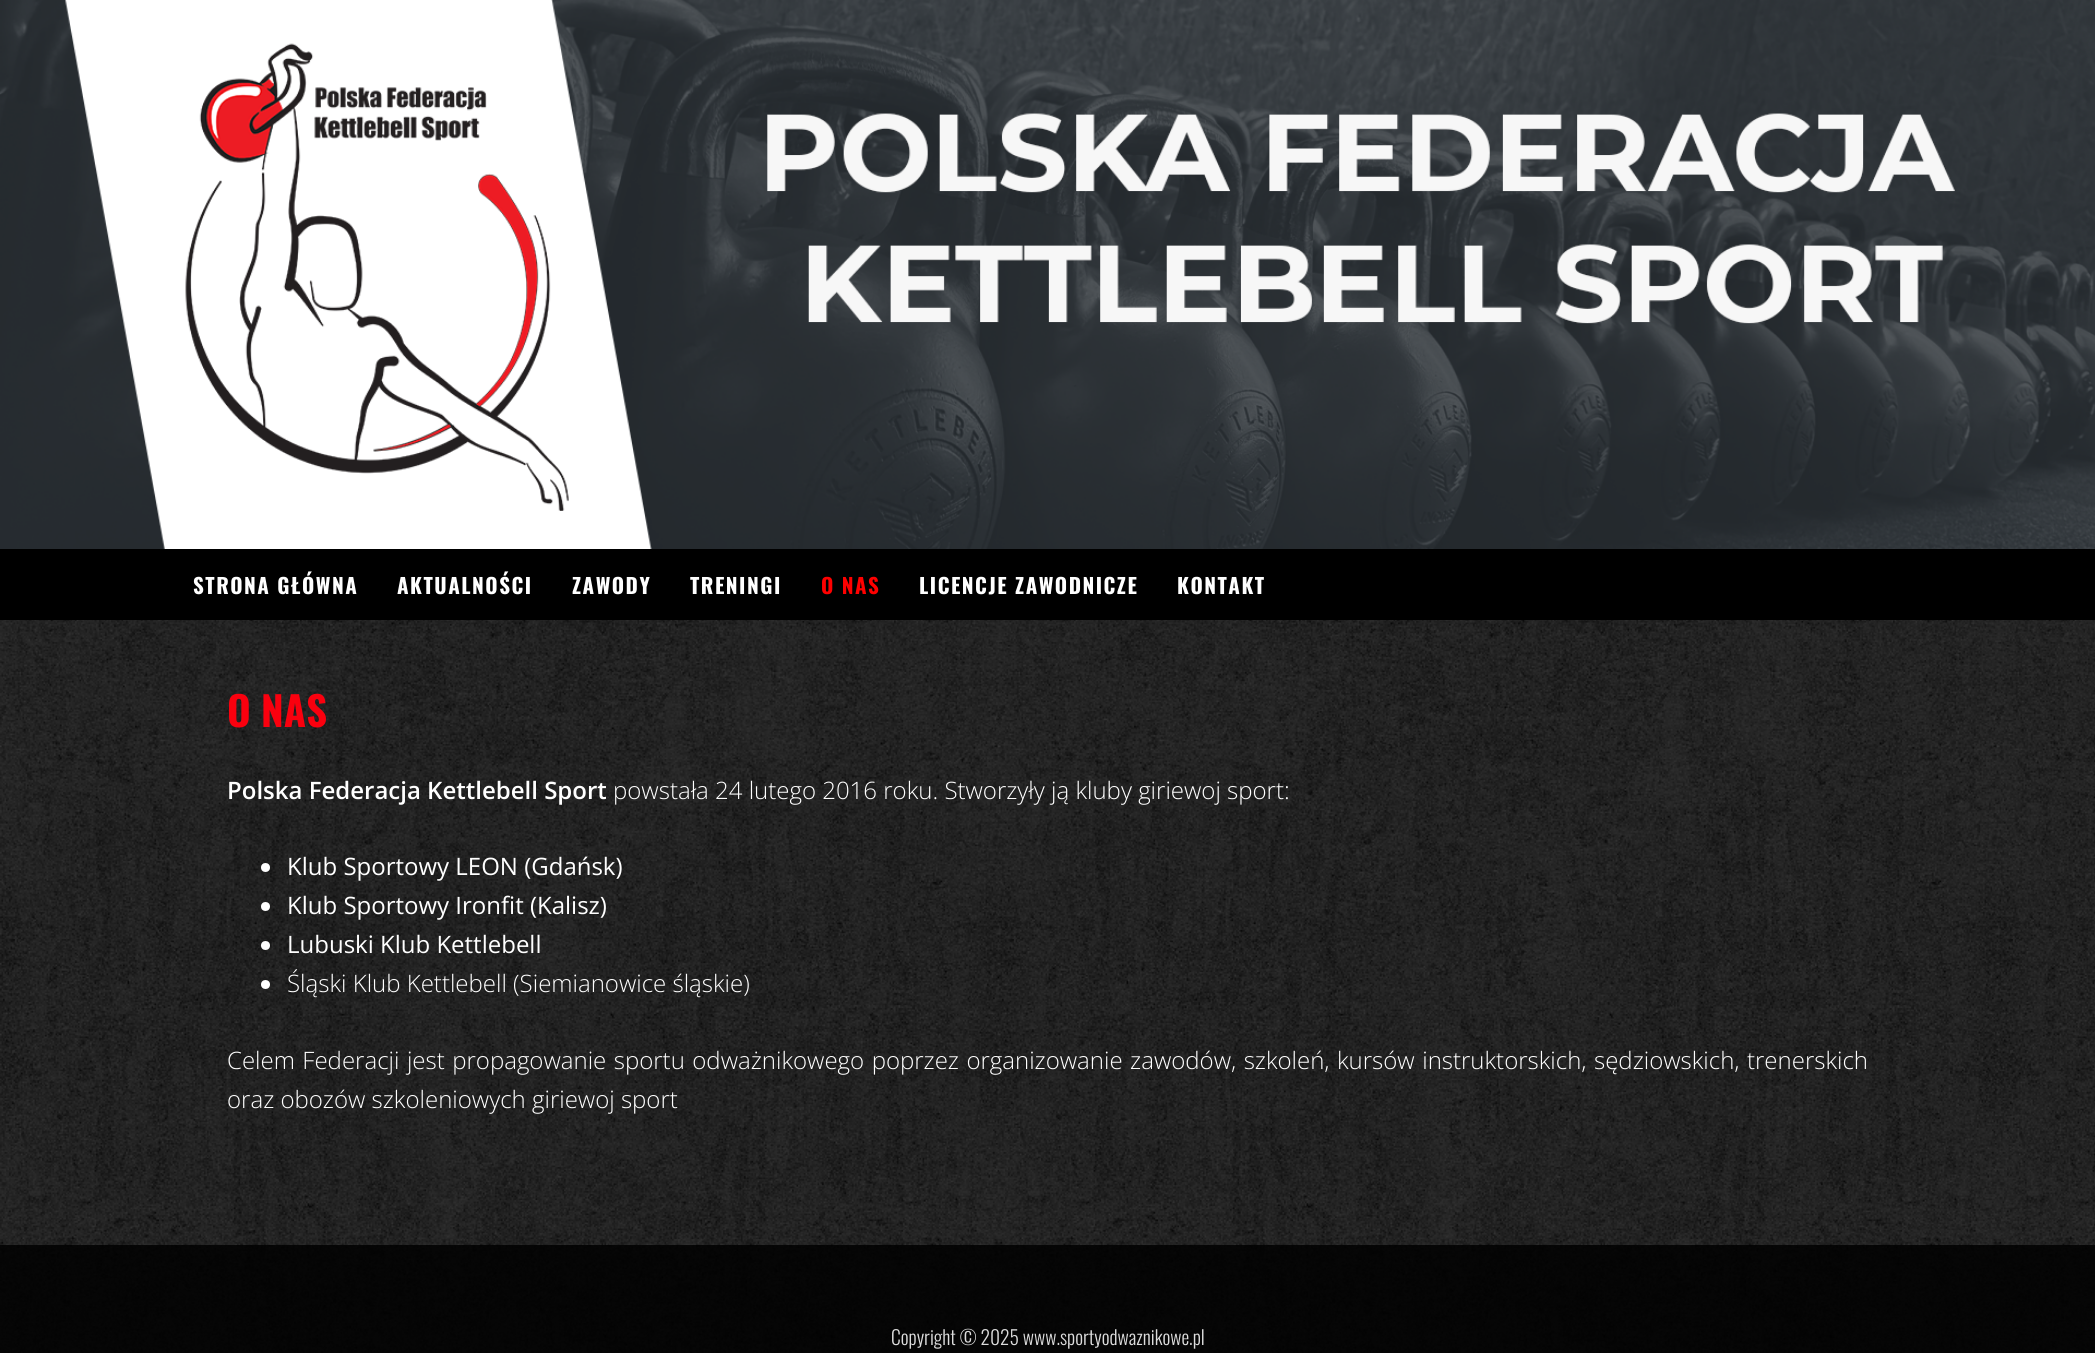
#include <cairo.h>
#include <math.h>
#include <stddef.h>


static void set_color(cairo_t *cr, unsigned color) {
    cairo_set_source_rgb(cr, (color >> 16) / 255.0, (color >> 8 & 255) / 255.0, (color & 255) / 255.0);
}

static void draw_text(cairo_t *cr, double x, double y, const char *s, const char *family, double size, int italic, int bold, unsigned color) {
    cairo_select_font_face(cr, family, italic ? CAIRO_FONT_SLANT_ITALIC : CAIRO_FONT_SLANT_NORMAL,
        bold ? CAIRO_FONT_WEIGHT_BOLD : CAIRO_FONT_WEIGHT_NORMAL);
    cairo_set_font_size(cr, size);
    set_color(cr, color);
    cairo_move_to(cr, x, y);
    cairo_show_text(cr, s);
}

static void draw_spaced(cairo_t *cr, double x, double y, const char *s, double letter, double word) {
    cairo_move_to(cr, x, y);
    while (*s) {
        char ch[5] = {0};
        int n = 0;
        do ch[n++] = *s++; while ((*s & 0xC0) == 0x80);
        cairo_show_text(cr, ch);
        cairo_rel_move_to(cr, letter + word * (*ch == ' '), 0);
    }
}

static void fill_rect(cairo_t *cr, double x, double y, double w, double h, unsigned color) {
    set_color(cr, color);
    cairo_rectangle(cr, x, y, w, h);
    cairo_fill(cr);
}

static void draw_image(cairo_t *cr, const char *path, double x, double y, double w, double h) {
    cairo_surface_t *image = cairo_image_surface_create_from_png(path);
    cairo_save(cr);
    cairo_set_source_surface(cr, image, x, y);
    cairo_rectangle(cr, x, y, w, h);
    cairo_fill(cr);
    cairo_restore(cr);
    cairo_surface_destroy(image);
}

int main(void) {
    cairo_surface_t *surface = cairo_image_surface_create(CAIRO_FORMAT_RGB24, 2095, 1353);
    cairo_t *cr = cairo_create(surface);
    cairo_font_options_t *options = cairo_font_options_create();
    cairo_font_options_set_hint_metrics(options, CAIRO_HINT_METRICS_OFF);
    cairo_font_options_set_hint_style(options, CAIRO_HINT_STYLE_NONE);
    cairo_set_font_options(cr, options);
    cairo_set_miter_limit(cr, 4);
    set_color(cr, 0xFFFFFF);
    cairo_paint(cr);
    draw_image(cr, "assets/img1.png", 0, 620, 2095, 733);
    draw_image(cr, "assets/img2.png", 0, 0, 2095, 549);
    fill_rect(cr, 0, 549, 2095, 71, 0x000000);
    cairo_select_font_face(cr, "Oswald", CAIRO_FONT_SLANT_NORMAL, CAIRO_FONT_WEIGHT_BOLD);
    cairo_set_font_size(cr, 21);
    set_color(cr, 0xFFFFFF);
    draw_spaced(cr, 193, 594, "STRONA GŁÓWNA", 1.5, 0);
    draw_spaced(cr, 397, 594, "AKTUALNOŚCI", 1.5, 0);
    draw_spaced(cr, 572, 594, "ZAWODY", 1.5, 0);
    draw_spaced(cr, 690, 594, "TRENINGI", 1.5, 0);
    set_color(cr, 0xFF0000);
    draw_spaced(cr, 821, 594, "O NAS", 1.5, 0);
    set_color(cr, 0xFFFFFF);
    draw_spaced(cr, 919, 594, "LICENCJE ZAWODNICZE", 1.5, 0);
    draw_spaced(cr, 1177, 594, "KONTAKT", 1.5, 0);
    draw_text(cr, 227, 727, "O NAS", "Oswald", 40.5, 0, 1, 0xFA000E);
    draw_text(cr, 227, 799, "Polska Federacja Kettlebell Sport", "Open Sans SemiBold", 24, 0, 0, 0xFFFFFF);
    draw_text(cr, 613, 799, "powstała 24 lutego 2016 roku. Stworzyły ją kluby giriewoj sport:", "Open Sans Light", 24, 0, 0, 0xFFFFFF);
    cairo_new_path(cr);
    cairo_arc(cr, 265.5, 867.5, 4.5, 0, 2 * M_PI);
    cairo_fill(cr);
    draw_text(cr, 287, 875, "Klub Sportowy LEON (Gdańsk)", "Open Sans", 24, 0, 0, 0xFFFFFF);
    cairo_new_path(cr);
    cairo_arc(cr, 265.5, 906.5, 4.5, 0, 2 * M_PI);
    cairo_fill(cr);
    draw_text(cr, 287, 914, "Klub Sportowy Ironfit (Kalisz)", "Open Sans", 24, 0, 0, 0xFFFFFF);
    cairo_new_path(cr);
    cairo_arc(cr, 265.5, 945.5, 4.5, 0, 2 * M_PI);
    cairo_fill(cr);
    draw_text(cr, 287, 953, "Lubuski Klub Kettlebell", "Open Sans", 24, 0, 0, 0xFFFFFF);
    cairo_new_path(cr);
    cairo_arc(cr, 265.5, 984.5, 4.5, 0, 2 * M_PI);
    cairo_fill(cr);
    draw_text(cr, 287, 992, "Śląski Klub Kettlebell (Siemianowice śląskie)", "Open Sans Light", 24, 0, 0, 0xFFFFFF);
    draw_spaced(cr, 227, 1069, "Celem Federacji jest propagowanie sportu odważnikowego poprzez organizowanie zawodów, szkoleń, kursów instruktorskich, sędziowskich, trenerskich", 0, 1.25);
    draw_text(cr, 227, 1108, "oraz obozów szkoleniowych giriewoj sport", "Open Sans Light", 24, 0, 0, 0xFFFFFF);
    cairo_set_source_rgba(cr, 0, 0, 0, 0.85);
    cairo_rectangle(cr, 0, 1245, 2095, 108);
    cairo_fill(cr);
    draw_text(cr, 891, 1345, "Copyright © 2025 www.sportyodwaznikowe.pl", "Oswald Light", 19.5, 0, 0, 0xDDDDDD);
    cairo_surface_write_to_png(surface, "output.png");
    cairo_font_options_destroy(options);
    cairo_destroy(cr);
    cairo_surface_destroy(surface);
    return 0;
}
